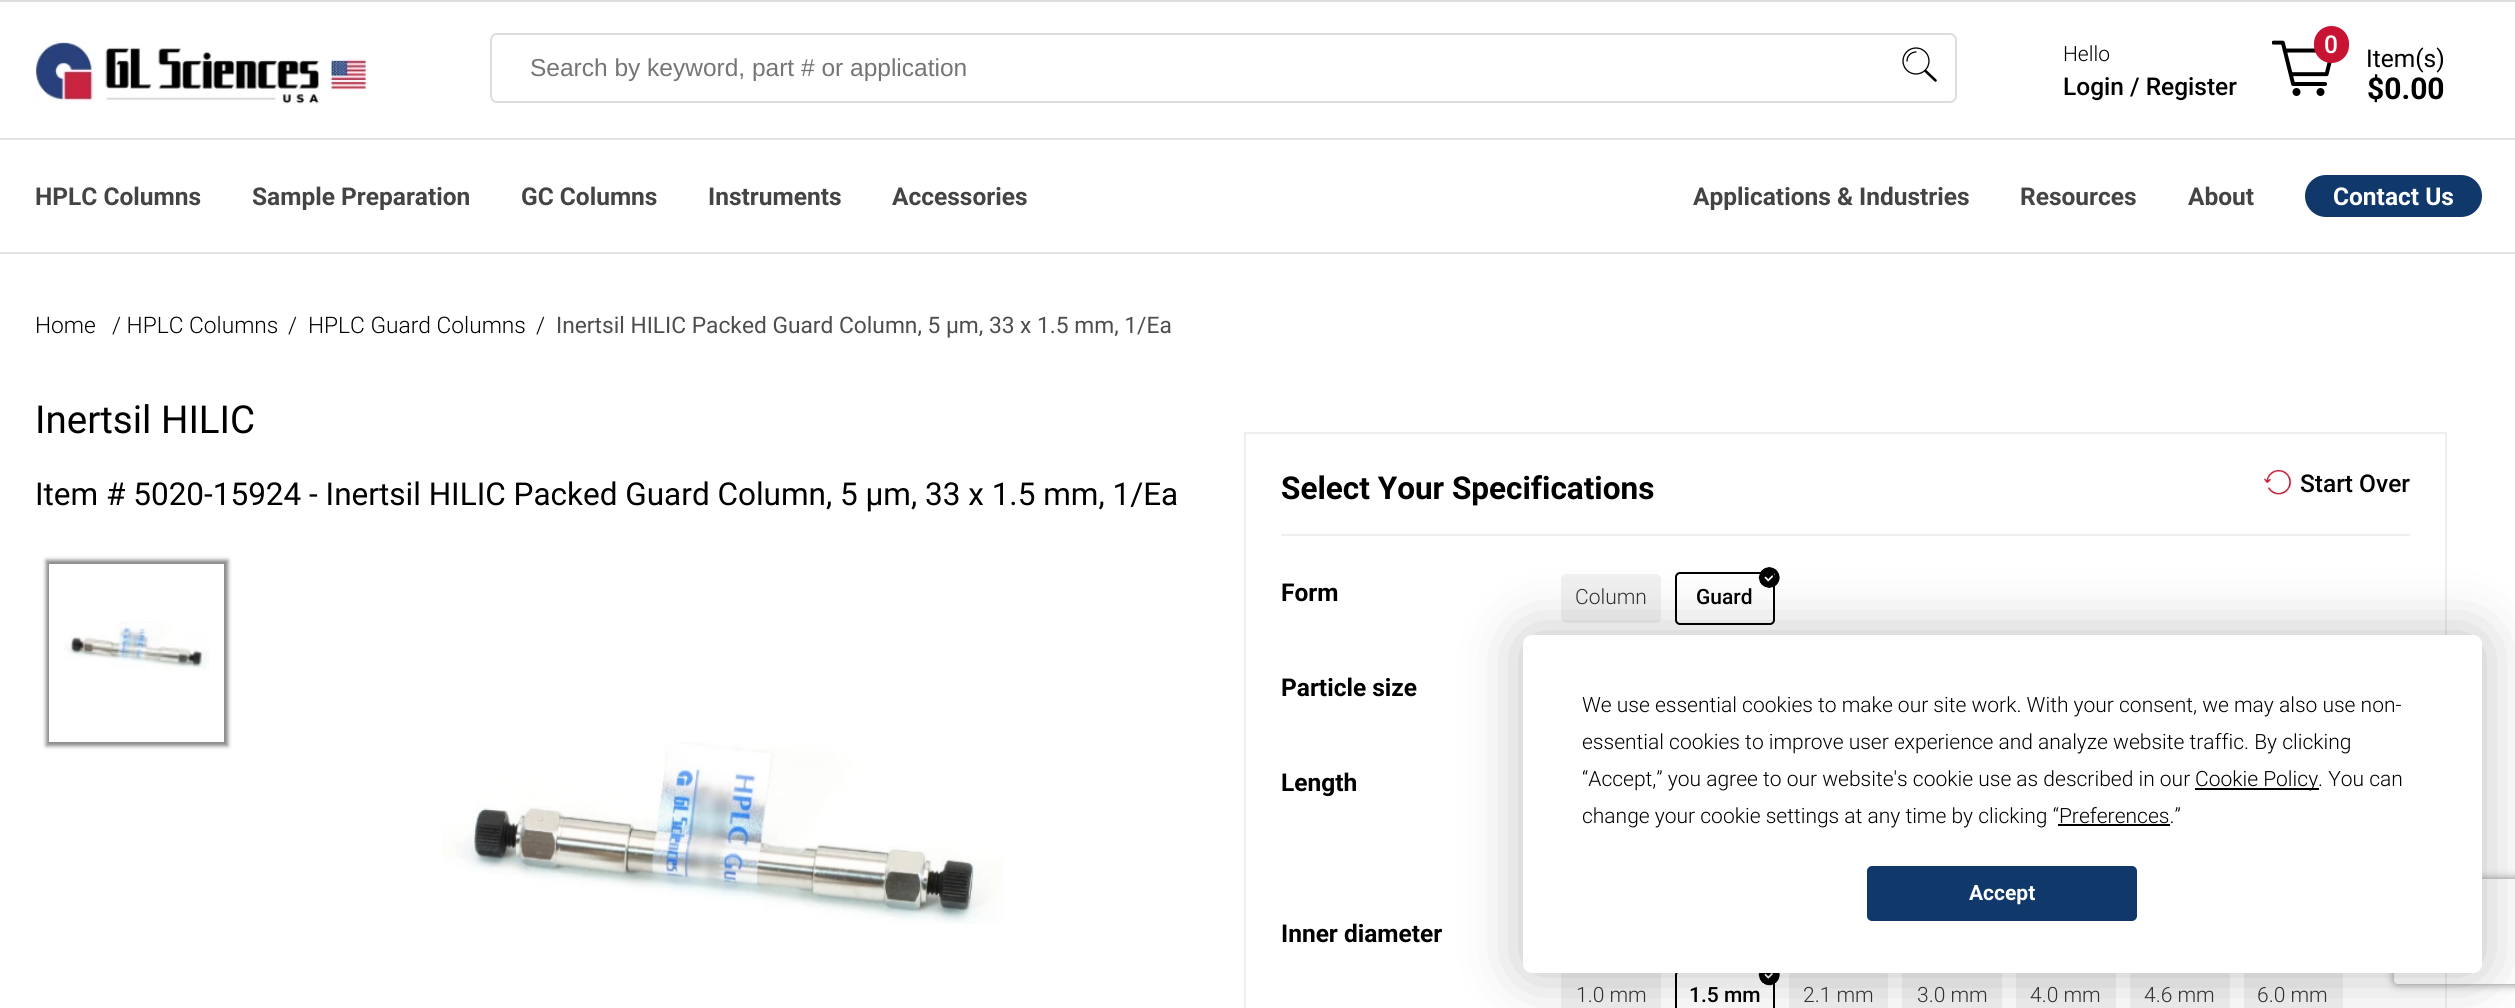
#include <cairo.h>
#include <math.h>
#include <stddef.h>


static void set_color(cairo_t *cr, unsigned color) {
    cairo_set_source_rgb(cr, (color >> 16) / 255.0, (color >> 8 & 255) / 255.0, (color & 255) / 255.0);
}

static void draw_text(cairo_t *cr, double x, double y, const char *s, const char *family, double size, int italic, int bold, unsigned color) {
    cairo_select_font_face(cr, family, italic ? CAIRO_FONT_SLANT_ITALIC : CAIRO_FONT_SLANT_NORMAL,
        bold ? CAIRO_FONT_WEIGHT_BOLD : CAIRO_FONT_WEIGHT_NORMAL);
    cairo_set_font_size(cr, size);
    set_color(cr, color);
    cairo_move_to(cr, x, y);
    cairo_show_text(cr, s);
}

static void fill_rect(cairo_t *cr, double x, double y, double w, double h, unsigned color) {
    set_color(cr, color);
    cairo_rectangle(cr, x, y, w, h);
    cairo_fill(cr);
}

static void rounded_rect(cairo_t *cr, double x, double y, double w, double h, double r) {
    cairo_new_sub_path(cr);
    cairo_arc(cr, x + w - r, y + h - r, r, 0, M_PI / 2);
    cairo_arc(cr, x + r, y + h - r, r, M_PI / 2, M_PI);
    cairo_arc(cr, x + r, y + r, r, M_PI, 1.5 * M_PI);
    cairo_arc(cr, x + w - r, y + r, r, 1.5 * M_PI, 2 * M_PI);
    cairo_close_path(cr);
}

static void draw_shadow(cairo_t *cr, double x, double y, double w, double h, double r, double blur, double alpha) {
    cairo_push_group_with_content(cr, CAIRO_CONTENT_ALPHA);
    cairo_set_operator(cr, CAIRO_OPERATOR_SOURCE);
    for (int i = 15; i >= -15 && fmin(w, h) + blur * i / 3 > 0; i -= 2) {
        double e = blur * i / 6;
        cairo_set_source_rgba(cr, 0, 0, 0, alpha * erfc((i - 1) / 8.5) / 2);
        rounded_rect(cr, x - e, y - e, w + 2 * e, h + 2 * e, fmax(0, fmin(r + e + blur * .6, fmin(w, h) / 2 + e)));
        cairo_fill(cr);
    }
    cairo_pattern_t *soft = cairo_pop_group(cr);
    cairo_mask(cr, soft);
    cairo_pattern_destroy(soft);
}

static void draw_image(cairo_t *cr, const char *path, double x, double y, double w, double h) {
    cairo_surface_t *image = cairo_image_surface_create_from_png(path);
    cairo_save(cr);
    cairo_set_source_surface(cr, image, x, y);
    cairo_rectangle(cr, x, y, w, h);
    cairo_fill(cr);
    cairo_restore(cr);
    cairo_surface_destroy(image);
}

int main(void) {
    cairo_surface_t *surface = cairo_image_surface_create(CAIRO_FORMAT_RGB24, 2515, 1008);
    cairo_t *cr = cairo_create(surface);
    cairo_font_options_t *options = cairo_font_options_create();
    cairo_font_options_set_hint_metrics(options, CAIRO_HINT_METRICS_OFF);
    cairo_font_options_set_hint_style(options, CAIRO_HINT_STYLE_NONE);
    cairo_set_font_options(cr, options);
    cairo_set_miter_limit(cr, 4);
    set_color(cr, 0xFFFFFF);
    cairo_paint(cr);
    fill_rect(cr, 0, 0, 2515, 2, 0xDDDDDD);
    fill_rect(cr, 0, 138, 2515, 2, 0xE3E3E3);
    draw_image(cr, "assets/img1.png", 35, 42, 331, 62);
    rounded_rect(cr, 491, 34, 1465, 68, 6);
    set_color(cr, 0xDDDDDD);
    cairo_stroke(cr);
    draw_text(cr, 530, 76, "Search by keyword, part # or application", "Liberation Sans", 24.5, 0, 0, 0x757575);
    cairo_new_path(cr);
    cairo_arc(cr, 1916, 61, 13, 0, 2 * M_PI);
    set_color(cr, 0x000000);
    cairo_set_line_width(cr, 1.3);
    cairo_stroke(cr);
    cairo_new_path(cr);
    cairo_move_to(cr, 1925.5, 71);
    cairo_line_to(cr, 1935.5, 80.5);
    cairo_set_line_width(cr, 2.6);
    cairo_set_line_cap(cr, CAIRO_LINE_CAP_ROUND);
    cairo_set_line_join(cr, CAIRO_LINE_JOIN_ROUND);
    cairo_stroke(cr);
    cairo_new_path(cr);
    cairo_move_to(cr, 1907, 61);
    cairo_curve_to(cr, 1907, 56, 1911, 52, 1916, 52);
    cairo_set_line_width(cr, 1.3);
    cairo_stroke(cr);
    draw_text(cr, 2063, 61, "Hello", "Roboto Light", 21, 0, 0, 0x000000);
    draw_text(cr, 2063, 95, "Login / Register", "Roboto Medium", 24.5, 0, 0, 0x000000);
    draw_image(cr, "assets/img2.png", 2272, 40, 60, 56);
    set_color(cr, 0xC81432);
    rounded_rect(cr, 2314, 26, 35, 37, 17.5);
    cairo_fill(cr);
    draw_text(cr, 2324, 53, "0", "Roboto Medium", 24.5, 0, 0, 0xFFFFFF);
    draw_text(cr, 2366, 67, "Item(s)", "Roboto", 24.5, 0, 0, 0x000000);
    draw_text(cr, 2367, 99, "$0.00", "Roboto", 30, 0, 1, 0x000000);
    fill_rect(cr, 0, 252, 2515, 2, 0xE3E3E3);
    draw_text(cr, 35, 205, "HPLC Columns", "Roboto", 24.5, 0, 1, 0x444444);
    draw_text(cr, 252, 205, "Sample Preparation", "Roboto", 24.5, 0, 1, 0x444444);
    draw_text(cr, 521, 205, "GC Columns", "Roboto", 24.5, 0, 1, 0x444444);
    draw_text(cr, 708, 205, "Instruments", "Roboto", 24.5, 0, 1, 0x444444);
    draw_text(cr, 892, 205, "Accessories", "Roboto", 24.5, 0, 1, 0x444444);
    draw_text(cr, 1693, 205, "Applications & Industries", "Roboto", 24.5, 0, 1, 0x444444);
    draw_text(cr, 2020, 205, "Resources", "Roboto", 24.5, 0, 1, 0x444444);
    draw_text(cr, 2188, 205, "About", "Roboto", 24.5, 0, 1, 0x444444);
    set_color(cr, 0x10386B);
    rounded_rect(cr, 2305, 175, 177, 42, 21);
    cairo_fill(cr);
    draw_text(cr, 2333, 205, "Contact Us", "Roboto", 24.5, 0, 1, 0xFFFFFF);
    draw_text(cr, 35, 333, "Home", "Roboto Light", 22.75, 0, 0, 0x000000);
    draw_text(cr, 112, 333, "/ HPLC Columns", "Roboto Light", 22.75, 0, 0, 0x000000);
    draw_text(cr, 288, 333, "/", "Roboto Light", 22.75, 0, 0, 0x000000);
    draw_text(cr, 308, 333, "HPLC Guard Columns", "Roboto Light", 22.75, 0, 0, 0x000000);
    draw_text(cr, 536, 333, "/", "Roboto Light", 22.75, 0, 0, 0x000000);
    draw_text(cr, 556, 333, "Inertsil HILIC Packed Guard Column, 5 µm, 33 x 1.5 mm, 1/Ea", "Roboto", 22.75, 0, 0, 0x4D4D4D);
    draw_text(cr, 35, 433, "Inertsil HILIC", "Roboto", 38.5, 0, 0, 0x000000);
    draw_text(cr, 35, 505, "Item # 5020-15924 - Inertsil HILIC Packed Guard Column, 5 µm, 33 x 1.5 mm, 1/Ea", "Roboto", 31.5, 0, 0, 0x000000);
    cairo_save(cr);
    cairo_set_fill_rule(cr, CAIRO_FILL_RULE_EVEN_ODD);
    cairo_new_path(cr);
    cairo_move_to(cr, 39, 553);
    cairo_line_to(cr, 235, 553);
    cairo_line_to(cr, 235, 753);
    cairo_line_to(cr, 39, 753);
    cairo_close_path(cr);
    cairo_move_to(cr, 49, 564);
    cairo_line_to(cr, 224, 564);
    cairo_line_to(cr, 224, 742);
    cairo_line_to(cr, 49, 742);
    cairo_close_path(cr);
    cairo_clip(cr);
    set_color(cr, 0x888888);
    draw_shadow(cr, 46, 560, 182, 186, 0, 2, 1);
    cairo_restore(cr);
    draw_image(cr, "assets/img3.png", 64, 621, 146, 50);
    draw_image(cr, "assets/img4.png", 442, 742, 562, 182);
    cairo_rectangle(cr, 1245, 433, 1201, 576);
    set_color(cr, 0xEEEEEE);
    cairo_set_line_width(cr, 2);
    cairo_set_line_cap(cr, CAIRO_LINE_CAP_BUTT);
    cairo_set_line_join(cr, CAIRO_LINE_JOIN_MITER);
    cairo_stroke(cr);
    fill_rect(cr, 1281, 534, 1129, 2, 0xEEEEEE);
    draw_text(cr, 1281, 499, "Select Your Specifications", "Roboto", 31.5, 0, 1, 0x000000);
    draw_image(cr, "assets/img5.png", 2264, 470, 28, 25);
    draw_text(cr, 2300, 492, "Start Over", "Roboto Medium", 24.5, 0, 0, 0x000000);
    draw_text(cr, 1281, 601, "Form", "Roboto", 24.5, 0, 1, 0x000000);
    set_color(cr, 0xF1F1F1);
    rounded_rect(cr, 1561, 574, 100, 49, 5);
    cairo_fill(cr);
    draw_text(cr, 1575, 604, "Column", "Roboto Light", 21, 0, 0, 0x333333);
    rounded_rect(cr, 1676, 573, 98, 51, 4);
    set_color(cr, 0x000000);
    cairo_stroke(cr);
    draw_image(cr, "assets/img6.png", 1758, 567, 22, 21);
    draw_text(cr, 1696, 604, "Guard", "Roboto Medium", 21, 0, 0, 0x000000);
    draw_text(cr, 1281, 696, "Particle size", "Roboto", 24.5, 0, 1, 0x000000);
    draw_text(cr, 1281, 791, "Length", "Roboto", 24.5, 0, 1, 0x000000);
    draw_text(cr, 1281, 942, "Inner diameter", "Roboto", 24.5, 0, 1, 0x000000);
    set_color(cr, 0xF1F1F1);
    rounded_rect(cr, 1561, 971, 100, 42, 5);
    cairo_fill(cr);
    draw_text(cr, 1576, 1002, "1.0 mm", "Roboto Light", 21, 0, 0, 0x333333);
    rounded_rect(cr, 1676, 971, 98, 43, 4);
    set_color(cr, 0x000000);
    cairo_stroke(cr);
    draw_image(cr, "assets/img7.png", 1758, 973, 22, 13);
    draw_text(cr, 1689, 1002, "1.5 mm", "Roboto Medium", 21, 0, 0, 0x000000);
    set_color(cr, 0xF1F1F1);
    rounded_rect(cr, 1789, 971, 99, 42, 5);
    cairo_fill(cr);
    draw_text(cr, 1803, 1002, "2.1 mm", "Roboto Light", 21, 0, 0, 0x333333);
    set_color(cr, 0xF1F1F1);
    rounded_rect(cr, 1902, 971, 100, 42, 5);
    cairo_fill(cr);
    draw_text(cr, 1917, 1002, "3.0 mm", "Roboto Light", 21, 0, 0, 0x333333);
    set_color(cr, 0xF1F1F1);
    rounded_rect(cr, 2016, 971, 100, 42, 5);
    cairo_fill(cr);
    draw_text(cr, 2030, 1002, "4.0 mm", "Roboto Light", 21, 0, 0, 0x333333);
    set_color(cr, 0xF1F1F1);
    rounded_rect(cr, 2130, 971, 100, 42, 5);
    cairo_fill(cr);
    draw_text(cr, 2144, 1002, "4.6 mm", "Roboto Light", 21, 0, 0, 0x333333);
    set_color(cr, 0xF1F1F1);
    rounded_rect(cr, 2244, 971, 99, 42, 5);
    cairo_fill(cr);
    draw_text(cr, 2257, 1002, "6.0 mm", "Roboto Light", 21, 0, 0, 0x333333);
    set_color(cr, 0x000000);
    draw_shadow(cr, 1523, 635, 959, 338, 9, 30.5, 0.25);
    cairo_save(cr);
    cairo_set_fill_rule(cr, CAIRO_FILL_RULE_EVEN_ODD);
    cairo_new_path(cr);
    cairo_move_to(cr, 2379, 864);
    cairo_line_to(cr, 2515, 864);
    cairo_line_to(cr, 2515, 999);
    cairo_line_to(cr, 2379, 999);
    cairo_close_path(cr);
    cairo_move_to(cr, 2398, 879);
    cairo_line_to(cr, 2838, 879);
    cairo_curve_to(cr, 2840, 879, 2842, 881, 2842, 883);
    cairo_line_to(cr, 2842, 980);
    cairo_curve_to(cr, 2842, 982, 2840, 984, 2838, 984);
    cairo_line_to(cr, 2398, 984);
    cairo_curve_to(cr, 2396, 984, 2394, 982, 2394, 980);
    cairo_line_to(cr, 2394, 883);
    cairo_curve_to(cr, 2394, 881, 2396, 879, 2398, 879);
    cairo_close_path(cr);
    cairo_clip(cr);
    set_color(cr, 0x808080);
    draw_shadow(cr, 2394, 879, 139, 105, 4, 4.5, 1);
    cairo_restore(cr);
    set_color(cr, 0xFFFFFF);
    rounded_rect(cr, 1523, 635, 959, 338, 9);
    cairo_fill(cr);
    draw_text(cr, 1582, 712, "We use essential cookies to make our site work. With your consent, we may also use non-", "Roboto Light", 21, 0, 0, 0x000000);
    draw_text(cr, 1582, 749, "essential cookies to improve user experience and analyze website traffic. By clicking", "Roboto Light", 21, 0, 0, 0x000000);
    draw_text(cr, 1582, 786, "“Accept,” you agree to our website's cookie use as described in our", "Roboto Light", 21, 0, 0, 0x000000);
    fill_rect(cr, 2195, 788, 124, 2, 0x000000);
    draw_text(cr, 2195, 786, "Cookie Policy. You can", "Roboto Light", 21, 0, 0, 0x000000);
    draw_text(cr, 1582, 823, "change your cookie settings at any time by clicking “Preferences.”", "Roboto Light", 21, 0, 0, 0x000000);
    fill_rect(cr, 2058, 824, 112, 2, 0x000000);
    set_color(cr, 0x10386B);
    rounded_rect(cr, 1868, 867, 268, 53, 4);
    cairo_fill_preserve(cr);
    cairo_stroke(cr);
    draw_text(cr, 1969, 900, "Accept", "Roboto", 21, 0, 1, 0xFFFFFF);
    cairo_surface_write_to_png(surface, "output.png");
    cairo_font_options_destroy(options);
    cairo_destroy(cr);
    cairo_surface_destroy(surface);
    return 0;
}
